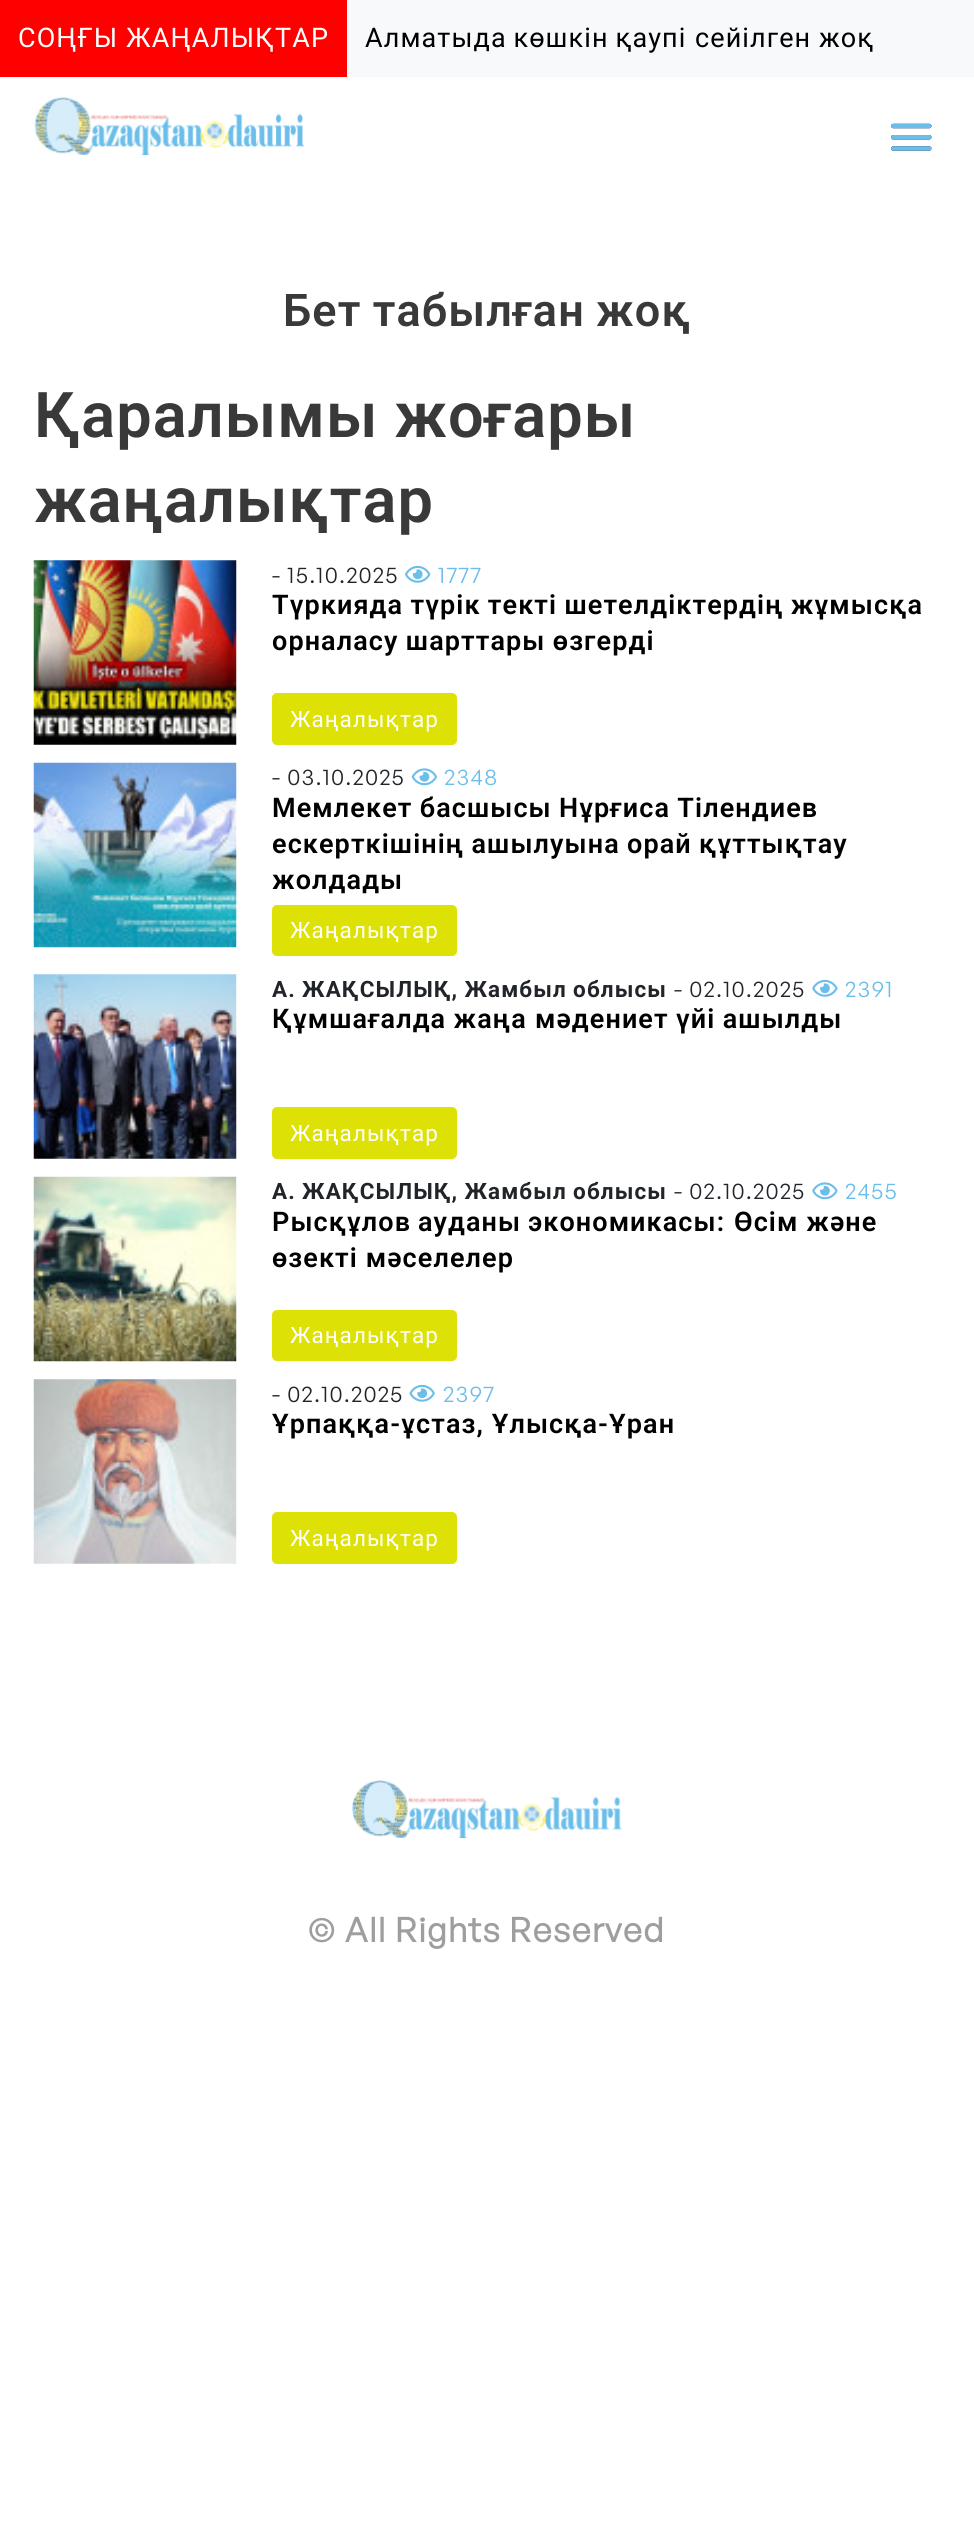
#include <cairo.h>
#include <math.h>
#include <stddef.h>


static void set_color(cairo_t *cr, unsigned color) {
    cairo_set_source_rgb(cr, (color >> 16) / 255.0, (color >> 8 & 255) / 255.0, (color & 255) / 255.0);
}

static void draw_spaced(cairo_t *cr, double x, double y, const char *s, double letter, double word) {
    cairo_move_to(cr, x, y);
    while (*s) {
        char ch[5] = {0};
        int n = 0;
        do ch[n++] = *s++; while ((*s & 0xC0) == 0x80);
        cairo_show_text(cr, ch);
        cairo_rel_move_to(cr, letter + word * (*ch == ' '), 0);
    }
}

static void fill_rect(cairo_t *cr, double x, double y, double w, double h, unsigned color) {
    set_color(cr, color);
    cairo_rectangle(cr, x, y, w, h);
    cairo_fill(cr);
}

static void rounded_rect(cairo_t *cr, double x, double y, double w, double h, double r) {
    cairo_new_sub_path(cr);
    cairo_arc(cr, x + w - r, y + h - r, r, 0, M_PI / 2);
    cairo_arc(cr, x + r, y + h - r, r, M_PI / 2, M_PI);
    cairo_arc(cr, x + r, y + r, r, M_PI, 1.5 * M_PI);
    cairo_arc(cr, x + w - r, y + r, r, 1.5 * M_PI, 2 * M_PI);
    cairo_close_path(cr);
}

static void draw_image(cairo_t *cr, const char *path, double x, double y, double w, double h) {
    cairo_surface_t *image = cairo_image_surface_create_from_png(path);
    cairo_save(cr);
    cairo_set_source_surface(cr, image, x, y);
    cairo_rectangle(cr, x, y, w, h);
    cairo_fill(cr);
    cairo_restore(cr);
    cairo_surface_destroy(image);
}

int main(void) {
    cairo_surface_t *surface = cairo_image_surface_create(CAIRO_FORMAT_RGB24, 974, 2531);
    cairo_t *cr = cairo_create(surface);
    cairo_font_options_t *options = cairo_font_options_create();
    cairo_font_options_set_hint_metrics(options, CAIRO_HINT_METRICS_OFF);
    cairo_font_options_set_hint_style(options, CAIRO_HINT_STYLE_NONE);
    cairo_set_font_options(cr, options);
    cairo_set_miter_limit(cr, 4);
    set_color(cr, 0xFFFFFF);
    cairo_paint(cr);
    fill_rect(cr, 347, 0, 627, 77, 0xF7F9FB);
    fill_rect(cr, 0, 0, 347, 77, 0xFF0000);
    cairo_select_font_face(cr, "Roboto", CAIRO_FONT_SLANT_NORMAL, CAIRO_FONT_WEIGHT_NORMAL);
    cairo_set_font_size(cr, 27);
    set_color(cr, 0xFFFFFF);
    draw_spaced(cr, 18, 47, "СОҢҒЫ ЖАҢАЛЫҚТАР", 1.1, 0);
    set_color(cr, 0x000000);
    draw_spaced(cr, 365, 47, "Алматыда көшкін қаупі", 1.1, -1);
    draw_spaced(cr, 695, 47, "сейілген жоқ", 1.1, 0);
    draw_image(cr, "assets/img1.png", 34, 97, 271, 59);
    draw_image(cr, "assets/img2.png", 891, 123, 41, 28);
    cairo_select_font_face(cr, "Roboto SemiBold", CAIRO_FONT_SLANT_NORMAL, CAIRO_FONT_WEIGHT_NORMAL);
    cairo_set_font_size(cr, 45);
    set_color(cr, 0x393939);
    draw_spaced(cr, 283, 326, "Бет табылған жоқ", 1.1, -1);
    cairo_set_font_size(cr, 63);
    draw_spaced(cr, 34, 437, "Қаралымы жоғары", 1.1, -1);
    draw_spaced(cr, 34, 522, "жаңалықтар", 1.1, 0);
    draw_image(cr, "assets/img3.png", 33, 560, 204, 185);
    cairo_select_font_face(cr, "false", CAIRO_FONT_SLANT_NORMAL, CAIRO_FONT_WEIGHT_NORMAL);
    cairo_set_font_size(cr, 22.5);
    set_color(cr, 0x212529);
    draw_spaced(cr, 272, 583, "- 15.10.2025", 1.1, 0);
    draw_image(cr, "assets/img4.png", 405, 565, 26, 18);
    set_color(cr, 0x6BBDEA);
    draw_spaced(cr, 438, 583, "1777", 1.1, 0);
    cairo_select_font_face(cr, "Roboto SemiBold", CAIRO_FONT_SLANT_NORMAL, CAIRO_FONT_WEIGHT_NORMAL);
    cairo_set_font_size(cr, 27);
    set_color(cr, 0x000000);
    draw_spaced(cr, 272, 614, "Түркияда түрік текті шетелдіктердің жұмысқа", 1.1, -0.5);
    draw_spaced(cr, 272, 650, "орналасу шарттары өзгерді", 1.1, -0.5);
    set_color(cr, 0xDDE105);
    rounded_rect(cr, 272, 693, 185, 52, 5);
    cairo_fill(cr);
    cairo_select_font_face(cr, "Roboto", CAIRO_FONT_SLANT_NORMAL, CAIRO_FONT_WEIGHT_NORMAL);
    cairo_set_font_size(cr, 22.5);
    set_color(cr, 0xFFFFFF);
    draw_spaced(cr, 290, 727, "Жаңалықтар", 1.1, 0);
    draw_image(cr, "assets/img5.png", 33, 762, 204, 186);
    cairo_select_font_face(cr, "false", CAIRO_FONT_SLANT_NORMAL, CAIRO_FONT_WEIGHT_NORMAL);
    set_color(cr, 0x212529);
    draw_spaced(cr, 272, 785, "- 03.10.2025", 1.1, 0);
    draw_image(cr, "assets/img6.png", 411, 768, 26, 18);
    set_color(cr, 0x6BBDEA);
    draw_spaced(cr, 444, 785, "2348", 1.1, 0);
    cairo_select_font_face(cr, "Roboto SemiBold", CAIRO_FONT_SLANT_NORMAL, CAIRO_FONT_WEIGHT_NORMAL);
    cairo_set_font_size(cr, 27);
    set_color(cr, 0x000000);
    draw_spaced(cr, 272, 817, "Мемлекет басшысы Нұрғиса Тілендиев", 1.1, -0.5);
    draw_spaced(cr, 272, 853, "ескерткішінің ашылуына орай құттықтау", 1.1, -0.5);
    draw_spaced(cr, 272, 889, "жолдады", 1.1, 0);
    set_color(cr, 0xDDE105);
    rounded_rect(cr, 272, 905, 185, 51, 5);
    cairo_fill(cr);
    cairo_select_font_face(cr, "Roboto", CAIRO_FONT_SLANT_NORMAL, CAIRO_FONT_WEIGHT_NORMAL);
    cairo_set_font_size(cr, 22.5);
    set_color(cr, 0xFFFFFF);
    draw_spaced(cr, 290, 938, "Жаңалықтар", 1.1, 0);
    draw_image(cr, "assets/img7.png", 33, 974, 204, 185);
    cairo_select_font_face(cr, "Roboto", CAIRO_FONT_SLANT_NORMAL, CAIRO_FONT_WEIGHT_BOLD);
    set_color(cr, 0x212529);
    draw_spaced(cr, 272, 997, "А. ЖАҚСЫЛЫҚ, Жамбыл облысы", 1.1, -0.5);
    cairo_select_font_face(cr, "false", CAIRO_FONT_SLANT_NORMAL, CAIRO_FONT_WEIGHT_NORMAL);
    draw_spaced(cr, 674, 997, "- 02.10.2025", 1.1, 0);
    draw_image(cr, "assets/img8.png", 812, 979, 26, 18);
    set_color(cr, 0x6BBDEA);
    draw_spaced(cr, 845, 997, "2391", 1.1, 0);
    cairo_select_font_face(cr, "Roboto SemiBold", CAIRO_FONT_SLANT_NORMAL, CAIRO_FONT_WEIGHT_NORMAL);
    cairo_set_font_size(cr, 27);
    set_color(cr, 0x000000);
    draw_spaced(cr, 272, 1028, "Құмшағалда жаңа", 1.1, -0.5);
    draw_spaced(cr, 535, 1028, "мәдениет үйі ашылды", 1.1, -0.5);
    set_color(cr, 0xDDE105);
    rounded_rect(cr, 272, 1107, 185, 52, 5);
    cairo_fill(cr);
    cairo_select_font_face(cr, "Roboto", CAIRO_FONT_SLANT_NORMAL, CAIRO_FONT_WEIGHT_NORMAL);
    cairo_set_font_size(cr, 22.5);
    set_color(cr, 0xFFFFFF);
    draw_spaced(cr, 290, 1141, "Жаңалықтар", 1.1, 0);
    draw_image(cr, "assets/img9.png", 33, 1176, 204, 186);
    cairo_select_font_face(cr, "Roboto", CAIRO_FONT_SLANT_NORMAL, CAIRO_FONT_WEIGHT_BOLD);
    set_color(cr, 0x212529);
    draw_spaced(cr, 272, 1199, "А. ЖАҚСЫЛЫҚ, Жамбыл облысы", 1.1, -0.5);
    cairo_select_font_face(cr, "false", CAIRO_FONT_SLANT_NORMAL, CAIRO_FONT_WEIGHT_NORMAL);
    draw_spaced(cr, 674, 1199, "- 02.10.2025", 1.1, 0);
    draw_image(cr, "assets/img10.png", 812, 1182, 26, 18);
    set_color(cr, 0x6BBDEA);
    draw_spaced(cr, 845, 1199, "2455", 1.1, 0);
    cairo_select_font_face(cr, "Roboto SemiBold", CAIRO_FONT_SLANT_NORMAL, CAIRO_FONT_WEIGHT_NORMAL);
    cairo_set_font_size(cr, 27);
    set_color(cr, 0x000000);
    draw_spaced(cr, 272, 1231, "Рысқұлов ауданы экономикасы:", 1.1, -1);
    draw_spaced(cr, 734, 1231, "Өсім және", 1.1, 0);
    draw_spaced(cr, 272, 1267, "өзекті мәселелер", 1.1, 0);
    set_color(cr, 0xDDE105);
    rounded_rect(cr, 272, 1310, 185, 51, 5);
    cairo_fill(cr);
    cairo_select_font_face(cr, "Roboto", CAIRO_FONT_SLANT_NORMAL, CAIRO_FONT_WEIGHT_NORMAL);
    cairo_set_font_size(cr, 22.5);
    set_color(cr, 0xFFFFFF);
    draw_spaced(cr, 290, 1343, "Жаңалықтар", 1.1, 0);
    draw_image(cr, "assets/img11.png", 33, 1379, 204, 185);
    cairo_select_font_face(cr, "false", CAIRO_FONT_SLANT_NORMAL, CAIRO_FONT_WEIGHT_NORMAL);
    set_color(cr, 0x212529);
    draw_spaced(cr, 272, 1402, "- 02.10.2025", 1.1, 0);
    draw_image(cr, "assets/img12.png", 409, 1384, 26, 18);
    set_color(cr, 0x6BBDEA);
    draw_spaced(cr, 443, 1402, "2397", 1.1, 0);
    cairo_select_font_face(cr, "Roboto SemiBold", CAIRO_FONT_SLANT_NORMAL, CAIRO_FONT_WEIGHT_NORMAL);
    cairo_set_font_size(cr, 27);
    set_color(cr, 0x000000);
    draw_spaced(cr, 272, 1433, "Ұрпаққа-ұстаз, Ұлысқа-Ұран", 1.1, 0);
    set_color(cr, 0xDDE105);
    rounded_rect(cr, 272, 1512, 185, 52, 5);
    cairo_fill(cr);
    cairo_select_font_face(cr, "Roboto", CAIRO_FONT_SLANT_NORMAL, CAIRO_FONT_WEIGHT_NORMAL);
    cairo_set_font_size(cr, 22.5);
    set_color(cr, 0xFFFFFF);
    draw_spaced(cr, 290, 1546, "Жаңалықтар", 1.1, 0);
    draw_image(cr, "assets/img13.png", 352, 1780, 270, 59);
    cairo_select_font_face(cr, "false", CAIRO_FONT_SLANT_NORMAL, CAIRO_FONT_WEIGHT_BOLD);
    cairo_set_font_size(cr, 33.75);
    set_color(cr, 0x9E9E9E);
    draw_spaced(cr, 308, 1942, "© All Rights Reserved", 1.1, 0);
    cairo_surface_write_to_png(surface, "output.png");
    cairo_font_options_destroy(options);
    cairo_destroy(cr);
    cairo_surface_destroy(surface);
    return 0;
}
